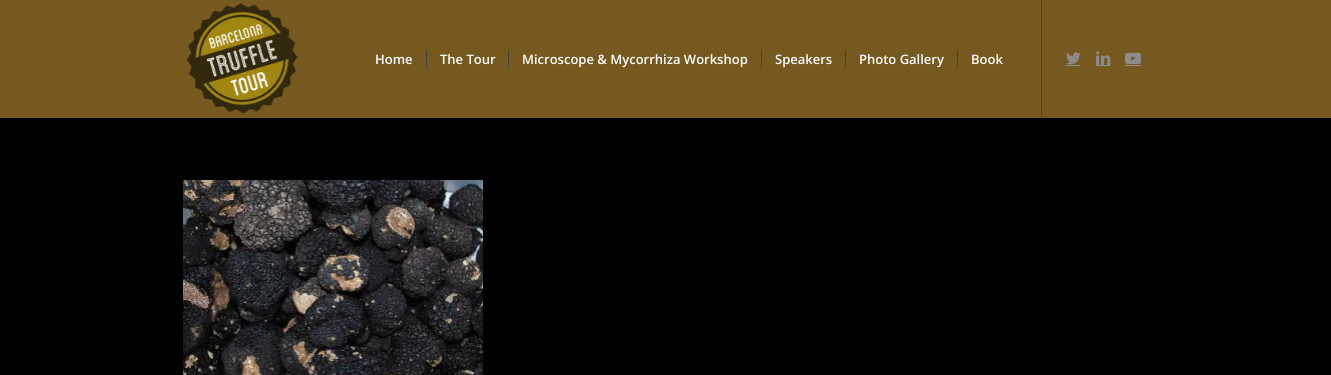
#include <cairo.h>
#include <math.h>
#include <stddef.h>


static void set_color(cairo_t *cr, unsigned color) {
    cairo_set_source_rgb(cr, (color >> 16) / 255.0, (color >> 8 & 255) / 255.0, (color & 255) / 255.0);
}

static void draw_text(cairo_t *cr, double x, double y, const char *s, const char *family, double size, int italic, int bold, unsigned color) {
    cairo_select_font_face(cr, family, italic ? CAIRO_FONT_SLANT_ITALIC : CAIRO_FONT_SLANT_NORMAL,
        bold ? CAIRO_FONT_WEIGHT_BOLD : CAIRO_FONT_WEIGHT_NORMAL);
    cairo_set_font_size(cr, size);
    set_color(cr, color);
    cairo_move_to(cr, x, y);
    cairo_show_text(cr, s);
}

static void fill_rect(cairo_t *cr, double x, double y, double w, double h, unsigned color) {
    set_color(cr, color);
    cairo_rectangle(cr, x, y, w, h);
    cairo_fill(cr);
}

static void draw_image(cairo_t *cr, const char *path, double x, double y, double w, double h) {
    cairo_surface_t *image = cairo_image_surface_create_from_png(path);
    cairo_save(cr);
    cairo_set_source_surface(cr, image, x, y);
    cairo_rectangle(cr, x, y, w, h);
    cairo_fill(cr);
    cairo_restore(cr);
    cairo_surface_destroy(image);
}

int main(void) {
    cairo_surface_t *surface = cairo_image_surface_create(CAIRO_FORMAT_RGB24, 1331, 375);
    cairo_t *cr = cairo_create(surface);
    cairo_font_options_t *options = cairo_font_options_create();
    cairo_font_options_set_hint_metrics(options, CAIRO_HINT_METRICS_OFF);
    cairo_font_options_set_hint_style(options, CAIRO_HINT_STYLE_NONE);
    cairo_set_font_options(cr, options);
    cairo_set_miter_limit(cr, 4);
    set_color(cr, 0x010101);
    cairo_paint(cr);
    fill_rect(cr, 0, 0, 1331, 118, 0x76591F);
    draw_image(cr, "assets/img1.png", 187, 3, 111, 111);
    fill_rect(cr, 1041, 0, 1, 118, 0x444444);
    draw_text(cr, 375, 64, "Home", "Open Sans SemiBold", 13, 0, 0, 0xFFFFFF);
    draw_text(cr, 440, 64, "The Tour", "Open Sans SemiBold", 13, 0, 0, 0xFFFFFF);
    fill_rect(cr, 426, 50, 1, 18, 0x444444);
    draw_text(cr, 522, 64, "Microscope & Mycorrhiza Workshop", "Open Sans SemiBold", 13, 0, 0, 0xFFFFFF);
    fill_rect(cr, 508, 50, 1, 18, 0x444444);
    draw_text(cr, 775, 64, "Speakers", "Open Sans SemiBold", 13, 0, 0, 0xFFFFFF);
    fill_rect(cr, 761, 50, 1, 18, 0x444444);
    draw_text(cr, 859, 64, "Photo Gallery", "Open Sans SemiBold", 13, 0, 0, 0xFFFFFF);
    fill_rect(cr, 845, 50, 1, 18, 0x444444);
    draw_text(cr, 971, 64, "Book", "Open Sans SemiBold", 13, 0, 0, 0xFFFFFF);
    fill_rect(cr, 957, 50, 1, 18, 0x444444);
    draw_image(cr, "assets/img2.png", 1066, 52, 15, 13);
    fill_rect(cr, 1066, 65, 14, 1, 0x8C8C8C);
    fill_rect(cr, 1096, 65, 14, 1, 0x8C8C8C);
    draw_image(cr, "assets/img3.png", 1096, 51, 15, 15);
    draw_image(cr, "assets/img4.png", 1125, 52, 16, 12);
    fill_rect(cr, 1125, 65, 16, 1, 0x8C8C8C);
    draw_image(cr, "assets/img5.png", 183, 180, 300, 195);
    cairo_surface_write_to_png(surface, "output.png");
    cairo_font_options_destroy(options);
    cairo_destroy(cr);
    cairo_surface_destroy(surface);
    return 0;
}
